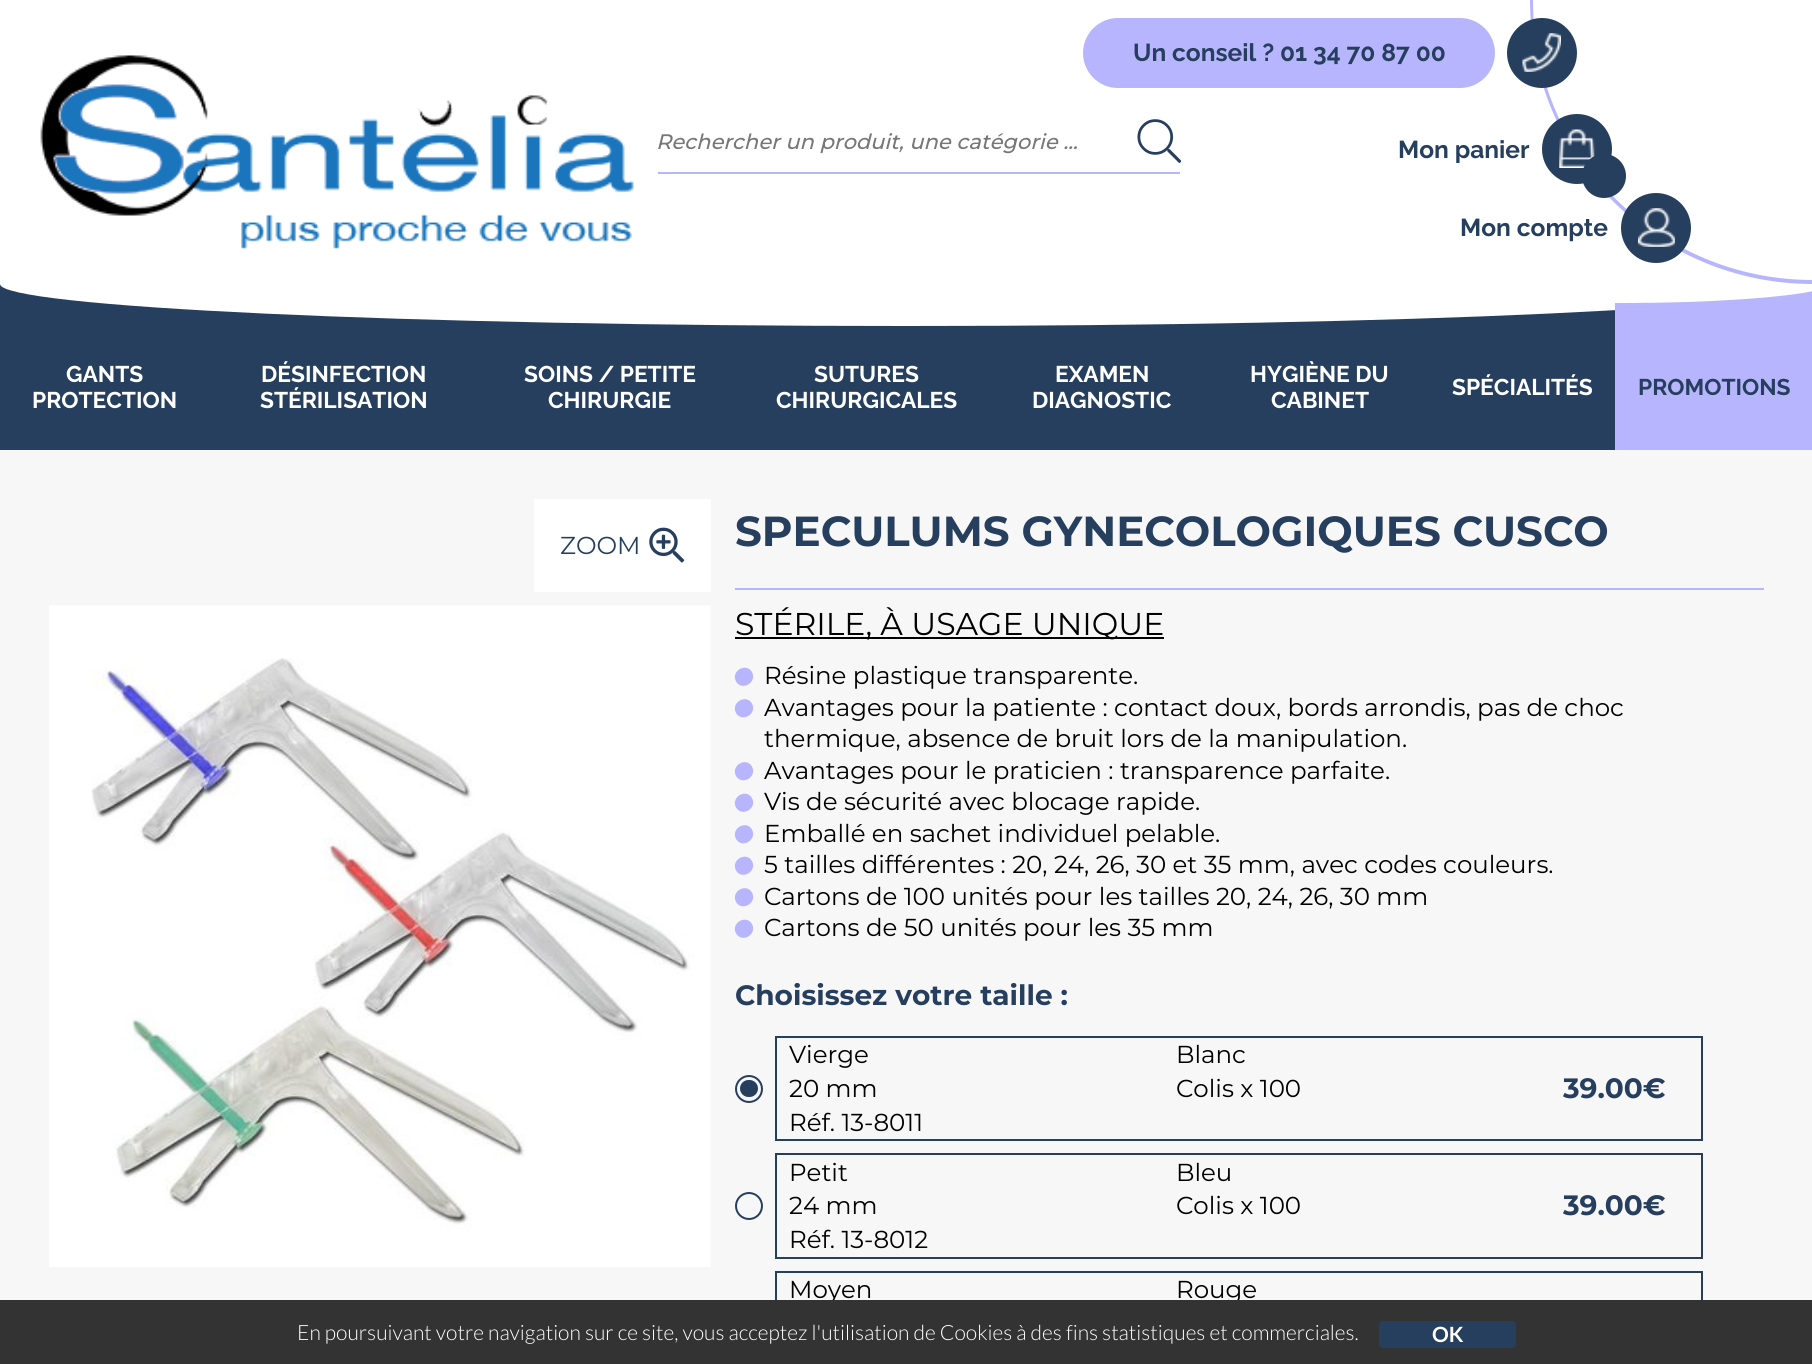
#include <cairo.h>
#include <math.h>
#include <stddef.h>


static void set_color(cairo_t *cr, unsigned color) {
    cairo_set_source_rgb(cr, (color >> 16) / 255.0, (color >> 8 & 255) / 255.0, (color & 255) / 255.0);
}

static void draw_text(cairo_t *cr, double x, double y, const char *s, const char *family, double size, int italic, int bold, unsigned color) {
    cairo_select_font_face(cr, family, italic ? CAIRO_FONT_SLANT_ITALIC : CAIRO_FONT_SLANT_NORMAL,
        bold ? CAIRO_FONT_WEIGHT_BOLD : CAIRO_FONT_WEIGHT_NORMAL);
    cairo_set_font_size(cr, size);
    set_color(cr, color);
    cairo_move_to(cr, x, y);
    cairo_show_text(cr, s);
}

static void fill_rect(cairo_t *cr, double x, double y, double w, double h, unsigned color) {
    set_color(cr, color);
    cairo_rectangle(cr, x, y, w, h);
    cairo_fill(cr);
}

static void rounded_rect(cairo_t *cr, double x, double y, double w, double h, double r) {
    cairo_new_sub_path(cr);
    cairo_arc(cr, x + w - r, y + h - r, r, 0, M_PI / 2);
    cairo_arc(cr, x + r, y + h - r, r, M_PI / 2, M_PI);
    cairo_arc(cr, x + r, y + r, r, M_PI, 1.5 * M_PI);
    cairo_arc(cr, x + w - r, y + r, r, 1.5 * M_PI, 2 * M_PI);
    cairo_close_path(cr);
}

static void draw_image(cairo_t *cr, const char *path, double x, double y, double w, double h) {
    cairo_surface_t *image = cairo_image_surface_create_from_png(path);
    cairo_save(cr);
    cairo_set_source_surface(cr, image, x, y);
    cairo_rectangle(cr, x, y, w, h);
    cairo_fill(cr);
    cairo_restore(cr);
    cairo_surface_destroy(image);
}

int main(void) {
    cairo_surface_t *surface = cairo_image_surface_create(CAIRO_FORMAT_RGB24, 1812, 1364);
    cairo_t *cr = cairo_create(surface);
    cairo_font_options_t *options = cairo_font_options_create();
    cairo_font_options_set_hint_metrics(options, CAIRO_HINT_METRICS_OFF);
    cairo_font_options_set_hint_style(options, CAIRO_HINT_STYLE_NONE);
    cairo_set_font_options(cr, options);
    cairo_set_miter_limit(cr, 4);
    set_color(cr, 0xF7F7F7);
    cairo_paint(cr);
    fill_rect(cr, 0, 0, 1812, 284, 0xFFFFFF);
    draw_image(cr, "assets/img1.png", 40, 55, 594, 194);
    fill_rect(cr, 658, 172, 522, 2, 0xB8B5FF);
    draw_text(cr, 656, 149, "Rechercher un produit, une catégorie ...", "Montserrat Medium", 21, 1, 0, 0x777777);
    draw_image(cr, "assets/img2.png", 1137, 119, 45, 44);
    set_color(cr, 0xB8B5FF);
    rounded_rect(cr, 1083, 18, 412, 70, 35);
    cairo_fill(cr);
    draw_text(cr, 1133, 61, "Un conseil ? 01 34 70 87 00", "Raleway Thin", 24.5, 0, 0, 0x273F5E);
    set_color(cr, 0xB8B5FF);
    cairo_set_fill_rule(cr, CAIRO_FILL_RULE_EVEN_ODD);
    cairo_new_path(cr);
    cairo_move_to(cr, 1530, 0);
    cairo_line_to(cr, 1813, 0);
    cairo_line_to(cr, 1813, 284);
    cairo_curve_to(cr, 1656, 284, 1530, 157, 1530, 0);
    cairo_close_path(cr);
    cairo_move_to(cr, 1533, 0);
    cairo_line_to(cr, 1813, 0);
    cairo_line_to(cr, 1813, 280);
    cairo_curve_to(cr, 1658, 280, 1533, 155, 1533, 0);
    cairo_close_path(cr);
    cairo_fill(cr);
    set_color(cr, 0x273F5E);
    cairo_arc(cr, 1542, 53, 35, 0, 2 * M_PI);
    cairo_fill(cr);
    draw_image(cr, "assets/img3.png", 1522, 33, 39, 39);
    cairo_save(cr);
    cairo_set_fill_rule(cr, CAIRO_FILL_RULE_WINDING);
    cairo_rectangle(cr, 1398, 135, 132, 28);
    cairo_clip(cr);
    draw_text(cr, 1398, 158, "Mon panier", "Raleway Thin", 24.5, 0, 0, 0x273F5E);
    cairo_restore(cr);
    cairo_new_path(cr);
    cairo_arc(cr, 1577, 149, 35, 0, 2 * M_PI);
    cairo_fill(cr);
    draw_image(cr, "assets/img4.png", 1559, 129, 36, 39);
    cairo_arc(cr, 1656, 228, 35, 0, 2 * M_PI);
    cairo_fill(cr);
    cairo_arc(cr, 1604, 176, 22, 0, 2 * M_PI);
    cairo_fill(cr);
    draw_text(cr, 1460, 236, "Mon compte", "Raleway Thin", 24.5, 0, 0, 0x273F5E);
    draw_image(cr, "assets/img5.png", 1638, 208, 37, 39);
    fill_rect(cr, 0, 284, 1615, 166, 0x273F5E);
    set_color(cr, 0xFFFFFF);
    cairo_set_fill_rule(cr, CAIRO_FILL_RULE_WINDING);
    cairo_new_path(cr);
    cairo_move_to(cr, 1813, 284);
    cairo_curve_to(cr, 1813, 307, 1407, 326, 906, 326);
    cairo_curve_to(cr, 406, 326, 0, 307, 0, 284);
    cairo_close_path(cr);
    cairo_fill(cr);
    draw_text(cr, 66, 382, "GANTS", "Raleway Thin", 22.75, 0, 0, 0xFFFFFF);
    draw_text(cr, 32, 408, "PROTECTION", "Raleway Thin", 22.75, 0, 0, 0xFFFFFF);
    draw_text(cr, 261, 382, "DÉSINFECTION", "Raleway Thin", 22.75, 0, 0, 0xFFFFFF);
    draw_text(cr, 260, 408, "STÉRILISATION", "Raleway Thin", 22.75, 0, 0, 0xFFFFFF);
    draw_text(cr, 524, 382, "SOINS / PETITE", "Raleway Thin", 22.75, 0, 0, 0xFFFFFF);
    draw_text(cr, 548, 408, "CHIRURGIE", "Raleway Thin", 22.75, 0, 0, 0xFFFFFF);
    draw_text(cr, 814, 382, "SUTURES", "Raleway Thin", 22.75, 0, 0, 0xFFFFFF);
    draw_text(cr, 776, 408, "CHIRURGICALES", "Raleway Thin", 22.75, 0, 0, 0xFFFFFF);
    draw_text(cr, 1055, 382, "EXAMEN", "Raleway Thin", 22.75, 0, 0, 0xFFFFFF);
    draw_text(cr, 1032, 408, "DIAGNOSTIC", "Raleway Thin", 22.75, 0, 0, 0xFFFFFF);
    draw_text(cr, 1250, 382, "HYGIÈNE DU", "Raleway Thin", 22.75, 0, 0, 0xFFFFFF);
    draw_text(cr, 1271, 408, "CABINET", "Raleway Thin", 22.75, 0, 0, 0xFFFFFF);
    draw_text(cr, 1452, 395, "SPÉCIALITÉS", "Raleway Thin", 22.75, 0, 0, 0xFFFFFF);
    fill_rect(cr, 1615, 291, 197, 159, 0xB8B5FF);
    set_color(cr, 0xFFFFFF);
    cairo_new_path(cr);
    cairo_move_to(cr, 1615, 284);
    cairo_line_to(cr, 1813, 284);
    cairo_line_to(cr, 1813, 291);
    cairo_curve_to(cr, 1787, 297, 1713, 303, 1625, 303);
    cairo_line_to(cr, 1615, 303);
    cairo_close_path(cr);
    cairo_fill(cr);
    draw_text(cr, 1638, 395, "PROMOTIONS", "Raleway Thin", 22.75, 0, 0, 0x273F5E);
    fill_rect(cr, 534, 499, 177, 93, 0xFFFFFF);
    draw_text(cr, 560, 554, "ZOOM", "Montserrat", 24.5, 0, 0, 0x273F5E);
    draw_image(cr, "assets/img6.png", 649, 527, 36, 36);
    draw_image(cr, "assets/img7.png", 49, 605, 662, 662);
    fill_rect(cr, 735, 588, 1029, 2, 0xB8B5FF);
    draw_text(cr, 735, 546, "SPECULUMS GYNECOLOGIQUES CUSCO", "Montserrat", 42, 0, 1, 0x273F5E);
    fill_rect(cr, 735, 637, 429, 2, 0x000000);
    draw_text(cr, 735, 635, "STÉRILE, À USAGE UNIQUE", "Montserrat", 31.5, 0, 0, 0x000000);
    set_color(cr, 0xB8B5FF);
    cairo_new_path(cr);
    cairo_move_to(cr, 752, 672);
    cairo_curve_to(cr, 757.5, 682.5, 742, 691.5, 736, 681.5);
    cairo_curve_to(cr, 730.5, 671, 746, 662, 752, 672);
    cairo_close_path(cr);
    cairo_fill(cr);
    draw_text(cr, 764, 684, "Résine plastique transparente.", "Montserrat", 24.5, 0, 0, 0x000000);
    set_color(cr, 0xB8B5FF);
    cairo_new_path(cr);
    cairo_move_to(cr, 752, 703.5);
    cairo_curve_to(cr, 757.5, 714, 742, 723, 736, 713);
    cairo_curve_to(cr, 730.5, 702.5, 746, 693.5, 752, 703.5);
    cairo_close_path(cr);
    cairo_fill(cr);
    draw_text(cr, 764, 716, "Avantages pour la patiente : contact doux, bords arrondis, pas de choc", "Montserrat", 24.5, 0, 0, 0x000000);
    draw_text(cr, 764, 747, "thermique, absence de bruit lors de la manipulation.", "Montserrat", 24.5, 0, 0, 0x000000);
    set_color(cr, 0xB8B5FF);
    cairo_new_path(cr);
    cairo_move_to(cr, 752, 766.5);
    cairo_curve_to(cr, 757.5, 777, 742, 786, 736, 776);
    cairo_curve_to(cr, 730.5, 765.5, 746, 756.5, 752, 766.5);
    cairo_close_path(cr);
    cairo_fill(cr);
    draw_text(cr, 764, 779, "Avantages pour le praticien : transparence parfaite.", "Montserrat", 24.5, 0, 0, 0x000000);
    set_color(cr, 0xB8B5FF);
    cairo_new_path(cr);
    cairo_move_to(cr, 752, 798);
    cairo_curve_to(cr, 757.5, 808.5, 742, 817.5, 736, 807.5);
    cairo_curve_to(cr, 730.5, 797, 746, 788, 752, 798);
    cairo_close_path(cr);
    cairo_fill(cr);
    draw_text(cr, 764, 810, "Vis de sécurité avec blocage rapide.", "Montserrat", 24.5, 0, 0, 0x000000);
    set_color(cr, 0xB8B5FF);
    cairo_new_path(cr);
    cairo_move_to(cr, 752, 829.5);
    cairo_curve_to(cr, 757.5, 840, 742, 849, 736, 839);
    cairo_curve_to(cr, 730.5, 828.5, 746, 819.5, 752, 829.5);
    cairo_close_path(cr);
    cairo_fill(cr);
    draw_text(cr, 764, 842, "Emballé en sachet individuel pelable.", "Montserrat", 24.5, 0, 0, 0x000000);
    set_color(cr, 0xB8B5FF);
    cairo_new_path(cr);
    cairo_move_to(cr, 752, 861);
    cairo_curve_to(cr, 757.5, 871.5, 742, 880.5, 736, 870.5);
    cairo_curve_to(cr, 730.5, 860, 746, 851, 752, 861);
    cairo_close_path(cr);
    cairo_fill(cr);
    draw_text(cr, 764, 873, "5 tailles différentes : 20, 24, 26, 30 et 35 mm, avec codes couleurs.", "Montserrat", 24.5, 0, 0, 0x000000);
    set_color(cr, 0xB8B5FF);
    cairo_new_path(cr);
    cairo_move_to(cr, 752, 892.5);
    cairo_curve_to(cr, 757.5, 903, 742, 912, 736, 902);
    cairo_curve_to(cr, 730.5, 891.5, 746, 882.5, 752, 892.5);
    cairo_close_path(cr);
    cairo_fill(cr);
    draw_text(cr, 764, 905, "Cartons de 100 unités pour les tailles 20, 24, 26, 30 mm", "Montserrat", 24.5, 0, 0, 0x000000);
    set_color(cr, 0xB8B5FF);
    cairo_new_path(cr);
    cairo_move_to(cr, 752, 924);
    cairo_curve_to(cr, 757.5, 934.5, 742, 943.5, 736, 933.5);
    cairo_curve_to(cr, 730.5, 923, 746, 914, 752, 924);
    cairo_close_path(cr);
    cairo_fill(cr);
    draw_text(cr, 764, 936, "Cartons de 50 unités pour les 35 mm", "Montserrat", 24.5, 0, 0, 0x000000);
    draw_text(cr, 735, 1005, "Choisissez votre taille :", "Montserrat", 28, 0, 1, 0x273F5E);
    rounded_rect(cr, 740, 1080, 18, 17, 8.5);
    cairo_fill(cr);
    cairo_arc(cr, 749, 1089, 13, 0, 2 * M_PI);
    cairo_stroke(cr);
    fill_rect(cr, 775, 1036, 928, 2, 0x273F5E);
    fill_rect(cr, 1701, 1036, 2, 105, 0x273F5E);
    fill_rect(cr, 775, 1139, 928, 2, 0x273F5E);
    fill_rect(cr, 775, 1036, 2, 105, 0x273F5E);
    draw_text(cr, 789, 1063, "Vierge", "Montserrat", 24.5, 0, 0, 0x000000);
    draw_text(cr, 1176, 1063, "Blanc", "Montserrat", 24.5, 0, 0, 0x000000);
    draw_text(cr, 789, 1097, "20 mm", "Montserrat", 24.5, 0, 0, 0x000000);
    draw_text(cr, 1176, 1097, "Colis x 100", "Montserrat", 24.5, 0, 0, 0x000000);
    draw_text(cr, 789, 1131, "Réf. 13-8011", "Montserrat", 24.5, 0, 0, 0x000000);
    draw_text(cr, 1563, 1098, "39.00€", "Montserrat", 28, 0, 1, 0x273F5E);
    cairo_new_path(cr);
    cairo_arc(cr, 749, 1206, 13, 0, 2 * M_PI);
    cairo_stroke(cr);
    fill_rect(cr, 775, 1153, 928, 2, 0x273F5E);
    fill_rect(cr, 1701, 1153, 2, 105, 0x273F5E);
    fill_rect(cr, 775, 1257, 928, 2, 0x273F5E);
    fill_rect(cr, 775, 1153, 2, 105, 0x273F5E);
    draw_text(cr, 789, 1181, "Petit", "Montserrat", 24.5, 0, 0, 0x000000);
    draw_text(cr, 1176, 1181, "Bleu", "Montserrat", 24.5, 0, 0, 0x000000);
    draw_text(cr, 789, 1214, "24 mm", "Montserrat", 24.5, 0, 0, 0x000000);
    draw_text(cr, 1176, 1214, "Colis x 100", "Montserrat", 24.5, 0, 0, 0x000000);
    draw_text(cr, 789, 1248, "Réf. 13-8012", "Montserrat", 24.5, 0, 0, 0x000000);
    draw_text(cr, 1563, 1215, "39.00€", "Montserrat", 28, 0, 1, 0x273F5E);
    fill_rect(cr, 775, 1271, 928, 2, 0x273F5E);
    fill_rect(cr, 1701, 1271, 2, 29, 0x273F5E);
    fill_rect(cr, 775, 1271, 2, 29, 0x273F5E);
    draw_text(cr, 789, 1298, "Moyen", "Montserrat", 24.5, 0, 0, 0x000000);
    draw_text(cr, 1176, 1298, "Rouge", "Montserrat", 24.5, 0, 0, 0x000000);
    fill_rect(cr, 0, 1300, 1812, 64, 0x333333);
    draw_text(cr, 297, 1340, "En poursuivant votre navigation sur ce site, vous acceptez l'utilisation de Cookies à des fins statistiques et commerciales.", "Lato Light", 21, 0, 0, 0xFFFFFF);
    set_color(cr, 0x273F5E);
    rounded_rect(cr, 1379, 1321, 137, 27, 4);
    cairo_fill(cr);
    draw_text(cr, 1432, 1342, "OK", "Lato", 21, 0, 1, 0xFFFFFF);
    cairo_surface_write_to_png(surface, "output.png");
    cairo_font_options_destroy(options);
    cairo_destroy(cr);
    cairo_surface_destroy(surface);
    return 0;
}
